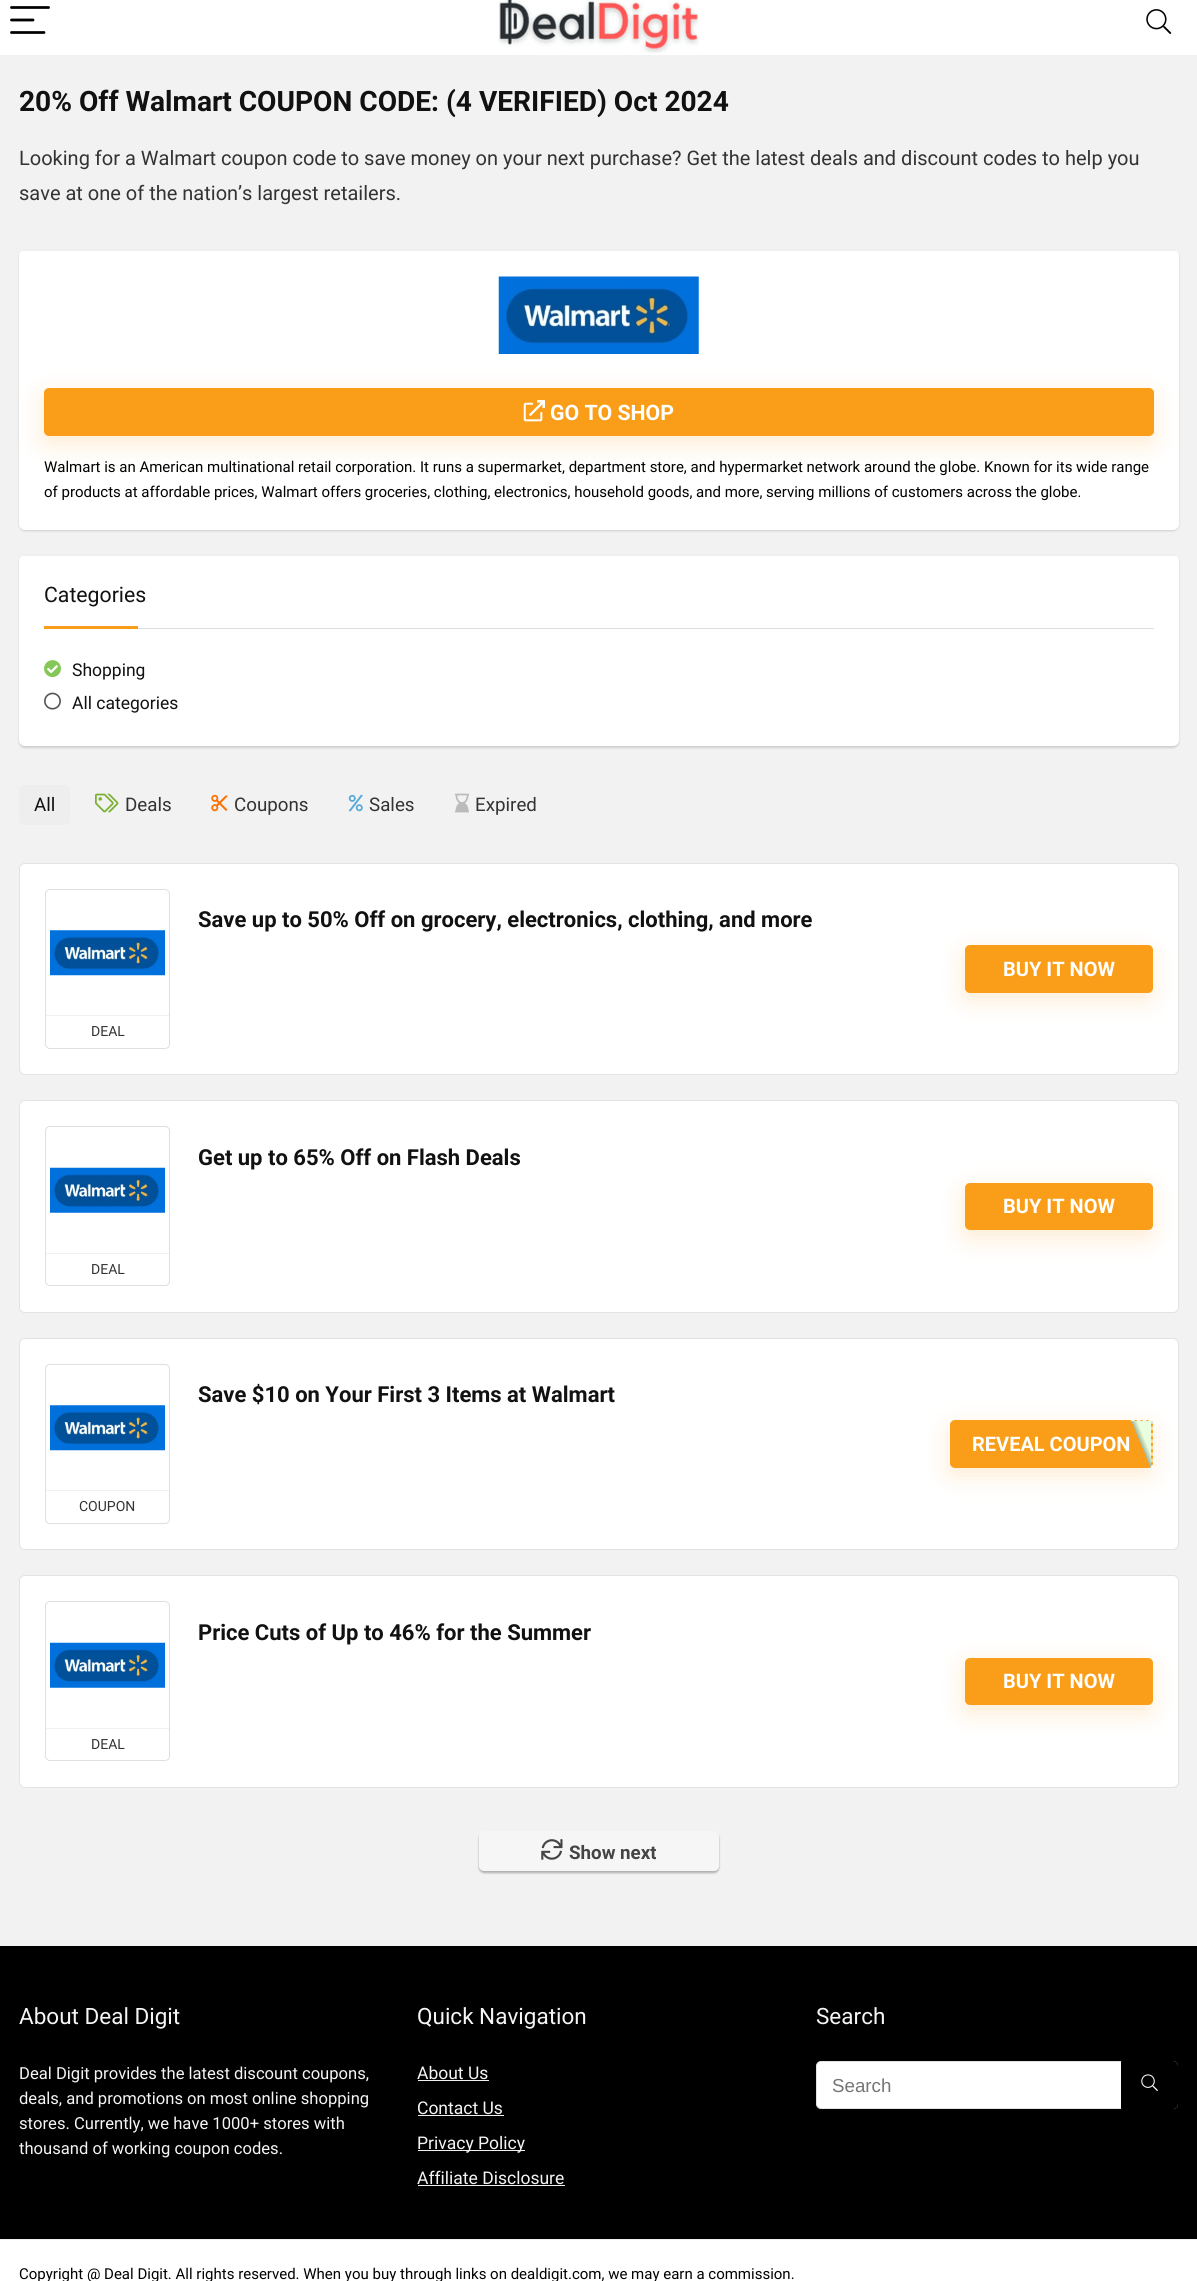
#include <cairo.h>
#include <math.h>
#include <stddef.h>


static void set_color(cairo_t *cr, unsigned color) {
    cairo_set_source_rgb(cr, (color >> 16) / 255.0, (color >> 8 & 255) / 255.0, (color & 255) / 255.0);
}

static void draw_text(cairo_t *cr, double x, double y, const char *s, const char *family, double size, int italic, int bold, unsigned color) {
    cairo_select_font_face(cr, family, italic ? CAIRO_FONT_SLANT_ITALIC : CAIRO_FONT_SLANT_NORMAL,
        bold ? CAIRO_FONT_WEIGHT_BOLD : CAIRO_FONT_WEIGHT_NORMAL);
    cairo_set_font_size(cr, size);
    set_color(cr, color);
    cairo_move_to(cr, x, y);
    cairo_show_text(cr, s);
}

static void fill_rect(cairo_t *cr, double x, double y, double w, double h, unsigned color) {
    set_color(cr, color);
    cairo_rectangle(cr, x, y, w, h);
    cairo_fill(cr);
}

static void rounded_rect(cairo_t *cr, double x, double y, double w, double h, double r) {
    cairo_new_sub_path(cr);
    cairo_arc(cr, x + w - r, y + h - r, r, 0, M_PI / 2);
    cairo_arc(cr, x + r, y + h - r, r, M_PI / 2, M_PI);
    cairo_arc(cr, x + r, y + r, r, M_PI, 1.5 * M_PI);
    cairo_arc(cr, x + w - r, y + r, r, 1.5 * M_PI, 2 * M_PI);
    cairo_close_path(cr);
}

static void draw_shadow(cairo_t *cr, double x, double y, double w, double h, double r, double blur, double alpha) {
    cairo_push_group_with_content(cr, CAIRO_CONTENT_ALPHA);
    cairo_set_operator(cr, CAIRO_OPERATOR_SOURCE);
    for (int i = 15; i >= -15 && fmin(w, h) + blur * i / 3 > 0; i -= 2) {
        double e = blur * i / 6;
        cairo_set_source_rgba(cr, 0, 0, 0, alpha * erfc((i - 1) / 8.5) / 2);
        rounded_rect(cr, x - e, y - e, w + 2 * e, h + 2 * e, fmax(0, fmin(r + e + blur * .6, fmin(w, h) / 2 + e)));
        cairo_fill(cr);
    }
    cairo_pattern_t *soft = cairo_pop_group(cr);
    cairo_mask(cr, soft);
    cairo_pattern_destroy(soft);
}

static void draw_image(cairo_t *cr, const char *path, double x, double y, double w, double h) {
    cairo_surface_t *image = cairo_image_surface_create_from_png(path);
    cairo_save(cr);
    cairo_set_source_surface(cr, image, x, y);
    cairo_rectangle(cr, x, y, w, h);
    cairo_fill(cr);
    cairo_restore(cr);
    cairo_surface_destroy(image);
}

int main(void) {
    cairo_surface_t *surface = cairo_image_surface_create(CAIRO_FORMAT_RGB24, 1197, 2281);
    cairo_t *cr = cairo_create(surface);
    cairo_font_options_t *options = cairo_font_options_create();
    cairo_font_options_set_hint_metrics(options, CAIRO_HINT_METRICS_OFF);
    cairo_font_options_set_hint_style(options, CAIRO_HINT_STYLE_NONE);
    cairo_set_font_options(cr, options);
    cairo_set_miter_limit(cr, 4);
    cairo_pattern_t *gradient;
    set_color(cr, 0xF2F2F2);
    cairo_paint(cr);
    fill_rect(cr, 0, 0, 1197, 55, 0xFFFFFF);
    cairo_new_path(cr);
    cairo_move_to(cr, 11.5, 7.5);
    cairo_line_to(cr, 48.5, 7.5);
    cairo_move_to(cr, 11.5, 20);
    cairo_line_to(cr, 33, 20);
    cairo_move_to(cr, 11.5, 32.5);
    cairo_line_to(cr, 44, 32.5);
    set_color(cr, 0x000000);
    cairo_set_line_width(cr, 2.8);
    cairo_set_line_cap(cr, CAIRO_LINE_CAP_ROUND);
    cairo_stroke(cr);
    draw_image(cr, "assets/img1.png", 498, 0, 201, 53);
    draw_image(cr, "assets/img2.png", 1146, 9, 26, 25);
    draw_text(cr, 19, 111, "20% Off Walmart COUPON CODE: (4 VERIFIED) Oct 2024", "Roboto", 28.1, 0, 1, 0x111111);
    draw_text(cr, 19, 165, "Looking for a Walmart coupon code to save money on your next purchase? Get the latest deals and discount codes to help you", "Roboto", 20, 0, 0, 0x333333);
    draw_text(cr, 19, 200, "save at one of the nation’s largest retailers.", "Roboto", 20, 0, 0, 0x333333);
    set_color(cr, 0x000000);
    draw_shadow(cr, 19, 251, 1160, 280, 6, 1, 0.15);
    set_color(cr, 0xFFFFFF);
    rounded_rect(cr, 19, 250, 1160, 280, 6);
    cairo_fill(cr);
    fill_rect(cr, 23, 250, 1153, 1, 0xEFEFEF);
    draw_image(cr, "assets/img3.png", 498, 276, 201, 78);
    set_color(cr, 0xFA9E19);
    draw_shadow(cr, 43, 395, 1110, 49, 5, 12, 0.2);
    set_color(cr, 0xFA9E19);
    rounded_rect(cr, 44, 388, 1110, 48, 5);
    cairo_fill(cr);
    draw_image(cr, "assets/img4.png", 523, 400, 22, 22);
    draw_text(cr, 550, 420, "GO TO SHOP", "Roboto", 21.25, 0, 1, 0xFFFFFF);
    draw_text(cr, 44, 472, "Walmart is an American multinational retail corporation. It runs a supermarket, department store, and hypermarket network around the globe. Known for its wide range", "Roboto", 15, 0, 0, 0x000000);
    draw_text(cr, 44, 497, "of products at affordable prices, Walmart offers groceries, clothing, electronics, household goods, and more, serving millions of customers across the globe.", "Roboto", 15, 0, 0, 0x000000);
    set_color(cr, 0x000000);
    draw_shadow(cr, 19, 556, 1160, 192, 6, 1, 0.15);
    set_color(cr, 0xFFFFFF);
    rounded_rect(cr, 19, 555, 1160, 191, 6);
    cairo_fill(cr);
    fill_rect(cr, 23, 555, 1153, 1, 0xEFEFEF);
    fill_rect(cr, 138, 628, 1016, 1, 0xDDDDDD);
    draw_text(cr, 44, 602, "Categories", "Roboto", 21.25, 0, 0, 0x111111);
    fill_rect(cr, 44, 626, 94, 3, 0xFA9E19);
    draw_image(cr, "assets/img5.png", 44, 660, 17, 18);
    draw_text(cr, 72, 676, "Shopping", "Roboto", 17.5, 0, 0, 0x111111);
    draw_image(cr, "assets/img6.png", 44, 692, 17, 18);
    draw_text(cr, 72, 709, "All categories", "Roboto", 17.5, 0, 0, 0x111111);
    set_color(cr, 0xEEEEEE);
    rounded_rect(cr, 19, 785, 51, 40, 5);
    cairo_fill(cr);
    draw_text(cr, 34, 811, "All", "Roboto", 18.75, 0, 0, 0x111111);
    draw_image(cr, "assets/img7.png", 95, 793, 24, 20);
    draw_text(cr, 125, 811, "Deals", "Roboto", 18.75, 0, 0, 0x333333);
    draw_image(cr, "assets/img8.png", 211, 794, 17, 18);
    draw_text(cr, 234, 811, "Coupons", "Roboto", 18.75, 0, 0, 0x333333);
    draw_image(cr, "assets/img9.png", 348, 794, 15, 18);
    draw_text(cr, 369, 811, "Sales", "Roboto", 18.75, 0, 0, 0x333333);
    draw_image(cr, "assets/img10.png", 455, 793, 14, 20);
    draw_text(cr, 475, 811, "Expired", "Roboto", 18.75, 0, 0, 0x333333);
    set_color(cr, 0xFFFFFF);
    rounded_rect(cr, 19.5, 863.5, 1159, 211, 5.5);
    cairo_fill_preserve(cr);
    set_color(cr, 0xE3E3E3);
    cairo_set_line_width(cr, 1);
    cairo_set_line_cap(cr, CAIRO_LINE_CAP_BUTT);
    cairo_stroke(cr);
    draw_text(cr, 198, 927, "Save up to 50% Off on grocery, electronics, clothing, and more", "Roboto", 22, 0, 1, 0x111111);
    set_color(cr, 0xFA9E19);
    draw_shadow(cr, 964, 953, 187, 47, 5, 12, 0.2);
    set_color(cr, 0xFA9E19);
    rounded_rect(cr, 965, 945, 188, 48, 5);
    cairo_fill(cr);
    draw_text(cr, 1003, 976, "BUY IT NOW", "Roboto", 20, 0, 1, 0xFFFFFF);
    rounded_rect(cr, 45.5, 889.5, 124, 159, 4.5);
    set_color(cr, 0xDCE0E0);
    cairo_stroke(cr);
    draw_image(cr, "assets/img11.png", 50, 930, 115, 46);
    fill_rect(cr, 46, 1015, 123, 1, 0xF0F0F0);
    draw_text(cr, 91, 1036, "DEAL", "Roboto", 14, 0, 0, 0x333333);
    set_color(cr, 0xFFFFFF);
    rounded_rect(cr, 19.5, 1100.5, 1159, 212, 5.5);
    cairo_fill_preserve(cr);
    set_color(cr, 0xE3E3E3);
    cairo_stroke(cr);
    draw_text(cr, 198, 1165, "Get up to 65% Off on Flash Deals", "Roboto", 22, 0, 1, 0x111111);
    set_color(cr, 0xFA9E19);
    draw_shadow(cr, 964, 1190, 187, 48, 5, 12, 0.2);
    set_color(cr, 0xFA9E19);
    rounded_rect(cr, 965, 1183, 188, 47, 5);
    cairo_fill(cr);
    draw_text(cr, 1003, 1213, "BUY IT NOW", "Roboto", 20, 0, 1, 0xFFFFFF);
    rounded_rect(cr, 45.5, 1126.5, 124, 159, 4.5);
    set_color(cr, 0xDCE0E0);
    cairo_stroke(cr);
    draw_image(cr, "assets/img12.png", 50, 1167, 115, 46);
    fill_rect(cr, 46, 1253, 123, 1, 0xF0F0F0);
    draw_text(cr, 91, 1274, "DEAL", "Roboto", 14, 0, 0, 0x333333);
    set_color(cr, 0xFFFFFF);
    rounded_rect(cr, 19.5, 1338.5, 1159, 211, 5.5);
    cairo_fill_preserve(cr);
    set_color(cr, 0xE3E3E3);
    cairo_stroke(cr);
    draw_text(cr, 198, 1402, "Save $10 on Your First 3 Items at Walmart", "Roboto", 22, 0, 1, 0x111111);
    set_color(cr, 0xFA9E19);
    draw_shadow(cr, 949, 1428, 202, 47, 5, 12, 0.2);
    set_color(cr, 0xFA9E19);
    rounded_rect(cr, 950, 1420, 203, 48, 5);
    cairo_fill(cr);
    draw_text(cr, 972, 1451, "REVEAL COUPON", "Roboto", 20, 0, 1, 0xFFFFFF);
    gradient = cairo_pattern_create_linear(1124, 1452, 1158, 1438);
    cairo_pattern_add_color_stop_rgba(gradient, 0, 0, 0, 0, 0);
    cairo_pattern_add_color_stop_rgba(gradient, 0.5, 0.651, 0.718, 0.616, 0);
    cairo_pattern_add_color_stop_rgba(gradient, 0.51, 0.651, 0.718, 0.616, 1);
    cairo_pattern_add_color_stop_rgba(gradient, 0.66, 0.914, 1, 0.867, 1);
    cairo_set_source(cr, gradient);
    cairo_pattern_destroy(gradient);
    cairo_rectangle(cr, 1131, 1421, 20, 47);
    cairo_fill(cr);
    gradient = cairo_pattern_create_linear(1144, 1452, 1178, 1438);
    cairo_pattern_add_color_stop_rgba(gradient, 0, 0, 0, 0, 0);
    cairo_pattern_add_color_stop_rgba(gradient, 0.5, 0.651, 0.718, 0.616, 0);
    cairo_pattern_add_color_stop_rgba(gradient, 0.51, 0.651, 0.718, 0.616, 1);
    cairo_pattern_add_color_stop_rgba(gradient, 0.66, 0.914, 1, 0.867, 1);
    cairo_set_source(cr, gradient);
    cairo_pattern_destroy(gradient);
    cairo_rectangle(cr, 1151, 1421, 2, 3);
    cairo_fill(cr);
    cairo_new_path(cr);
    cairo_move_to(cr, 1131, 1420.5);
    cairo_line_to(cr, 1152.5, 1420.5);
    set_color(cr, 0xFFFFFF);
    cairo_set_line_width(cr, 1.2);
    cairo_set_dash(cr, (double[]){3.75, 2.09}, 2, 0);
    cairo_stroke(cr);
    cairo_new_path(cr);
    cairo_move_to(cr, 1152, 1420);
    cairo_line_to(cr, 1152, 1469);
    cairo_set_dash(cr, (double[]){3.75, 2.68}, 2, 0);
    cairo_stroke(cr);
    rounded_rect(cr, 45.5, 1364.5, 124, 159, 4.5);
    set_color(cr, 0xDCE0E0);
    cairo_set_line_width(cr, 1);
    cairo_set_dash(cr, NULL, 0, 0);
    cairo_stroke(cr);
    draw_image(cr, "assets/img11.png", 50, 1405, 115, 46);
    fill_rect(cr, 46, 1490, 123, 1, 0xF0F0F0);
    draw_text(cr, 79, 1511, "COUPON", "Roboto", 14, 0, 0, 0x333333);
    set_color(cr, 0xFFFFFF);
    rounded_rect(cr, 19.5, 1575.5, 1159, 212, 5.5);
    cairo_fill_preserve(cr);
    set_color(cr, 0xE3E3E3);
    cairo_stroke(cr);
    draw_text(cr, 198, 1640, "Price Cuts of Up to 46% for the Summer", "Roboto", 22, 0, 1, 0x111111);
    set_color(cr, 0xFA9E19);
    draw_shadow(cr, 964, 1665, 187, 48, 5, 12, 0.2);
    set_color(cr, 0xFA9E19);
    rounded_rect(cr, 965, 1658, 188, 47, 5);
    cairo_fill(cr);
    draw_text(cr, 1003, 1688, "BUY IT NOW", "Roboto", 20, 0, 1, 0xFFFFFF);
    rounded_rect(cr, 45.5, 1601.5, 124, 159, 4.5);
    set_color(cr, 0xDCE0E0);
    cairo_stroke(cr);
    draw_image(cr, "assets/img13.png", 50, 1642, 115, 46);
    fill_rect(cr, 46, 1728, 123, 1, 0xF0F0F0);
    draw_text(cr, 91, 1749, "DEAL", "Roboto", 14, 0, 0, 0x333333);
    set_color(cr, 0x000000);
    draw_shadow(cr, 479, 1833, 240, 40, 5, 1, 0.08);
    set_color(cr, 0x3C4043);
    draw_shadow(cr, 479, 1833, 240, 40, 5, 1, 0.3);
    set_color(cr, 0xF6F6F6);
    rounded_rect(cr, 479, 1831, 240, 40, 5);
    cairo_fill(cr);
    draw_image(cr, "assets/img14.png", 541, 1839, 22, 21);
    draw_text(cr, 569, 1859, "Show next", "Roboto", 18.75, 0, 1, 0x444444);
    fill_rect(cr, 0, 1946, 1197, 293, 0x000000);
    draw_text(cr, 19, 2024, "About Deal Digit", "Roboto", 22.5, 0, 0, 0xF5F5F5);
    draw_text(cr, 19, 2079, "Deal Digit provides the latest discount coupons,", "Roboto", 16.6, 0, 0, 0xF5F5F5);
    draw_text(cr, 19, 2104, "deals, and promotions on most online shopping", "Roboto", 16.6, 0, 0, 0xF5F5F5);
    draw_text(cr, 19, 2129, "stores. Currently, we have 1000+ stores with", "Roboto", 16.6, 0, 0, 0xF5F5F5);
    draw_text(cr, 19, 2154, "thousand of working coupon codes.", "Roboto", 16.6, 0, 0, 0xF5F5F5);
    draw_text(cr, 417, 2024, "Quick Navigation", "Roboto", 22.5, 0, 0, 0xF5F5F5);
    draw_text(cr, 417, 2079, "About Us", "Roboto", 17.5, 0, 0, 0xF5F5F5);
    fill_rect(cr, 418, 2080, 71, 1, 0xF1F1F1);
    draw_text(cr, 417, 2114, "Contact Us", "Roboto", 17.5, 0, 0, 0xF5F5F5);
    fill_rect(cr, 418, 2115, 86, 1, 0xF1F1F1);
    fill_rect(cr, 418, 2150, 107, 1, 0xF1F1F1);
    draw_text(cr, 417, 2149, "Privacy Policy", "Roboto", 17.5, 0, 0, 0xF5F5F5);
    draw_text(cr, 417, 2184, "Affiliate Disclosure", "Roboto", 17.5, 0, 0, 0xF5F5F5);
    fill_rect(cr, 418, 2185, 147, 1, 0xF1F1F1);
    draw_text(cr, 816, 2024, "Search", "Roboto", 22.5, 0, 0, 0xF5F5F5);
    set_color(cr, 0xFFFFFF);
    rounded_rect(cr, 816.5, 2061.5, 361, 47, 4.5);
    cairo_fill_preserve(cr);
    set_color(cr, 0xE1E1E1);
    cairo_stroke(cr);
    draw_text(cr, 832, 2092, "Search", "Liberation Sans", 18.75, 0, 0, 0x757575);
    set_color(cr, 0x000000);
    cairo_new_path(cr);
    cairo_move_to(cr, 1121, 2061);
    cairo_line_to(cr, 1173, 2061);
    cairo_curve_to(cr, 1176, 2061, 1178, 2063, 1178, 2066);
    cairo_line_to(cr, 1178, 2104);
    cairo_curve_to(cr, 1178, 2107, 1176, 2109, 1173, 2109);
    cairo_line_to(cr, 1121, 2109);
    cairo_close_path(cr);
    cairo_fill(cr);
    draw_image(cr, "assets/img15.png", 1141, 2074, 17, 17);
    fill_rect(cr, 0, 2240, 1197, 41, 0xFFFFFF);
    fill_rect(cr, 0, 2239, 1197, 1, 0xEEEEEE);
    draw_text(cr, 19, 2279, "Copyright @ Deal Digit. All rights reserved. When you buy through links on dealdigit.com, we may earn a commission.", "Roboto", 15, 0, 0, 0x000000);
    cairo_surface_write_to_png(surface, "output.png");
    cairo_font_options_destroy(options);
    cairo_destroy(cr);
    cairo_surface_destroy(surface);
    return 0;
}
